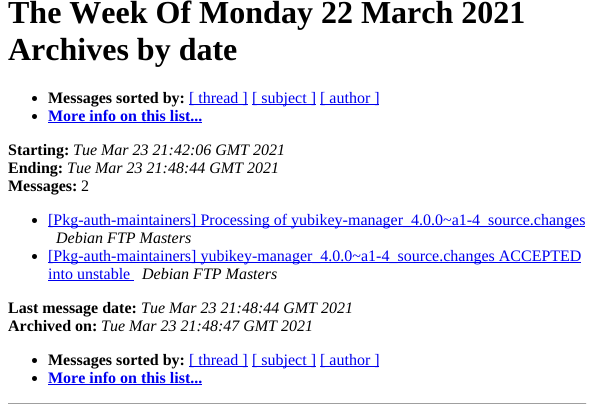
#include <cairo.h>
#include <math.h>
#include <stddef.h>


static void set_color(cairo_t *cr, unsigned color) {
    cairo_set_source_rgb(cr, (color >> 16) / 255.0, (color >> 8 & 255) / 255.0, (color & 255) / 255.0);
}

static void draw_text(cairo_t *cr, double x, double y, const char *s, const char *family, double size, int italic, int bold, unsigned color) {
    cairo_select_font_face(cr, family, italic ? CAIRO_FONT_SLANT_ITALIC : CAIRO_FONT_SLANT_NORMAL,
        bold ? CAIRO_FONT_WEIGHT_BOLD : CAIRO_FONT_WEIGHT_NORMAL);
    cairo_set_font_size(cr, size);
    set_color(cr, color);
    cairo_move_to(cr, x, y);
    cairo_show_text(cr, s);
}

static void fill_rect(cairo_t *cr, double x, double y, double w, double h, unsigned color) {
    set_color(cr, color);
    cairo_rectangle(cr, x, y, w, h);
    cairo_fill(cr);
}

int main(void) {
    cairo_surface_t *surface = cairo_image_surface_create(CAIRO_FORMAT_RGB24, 595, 404);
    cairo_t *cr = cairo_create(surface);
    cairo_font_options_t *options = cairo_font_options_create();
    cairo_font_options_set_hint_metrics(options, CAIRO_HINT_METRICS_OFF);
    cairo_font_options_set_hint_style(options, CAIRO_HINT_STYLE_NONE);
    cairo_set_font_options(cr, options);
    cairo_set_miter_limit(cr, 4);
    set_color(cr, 0xFFFFFF);
    cairo_paint(cr);
    draw_text(cr, 8, 23, "The Week Of Monday 22 March 2021", "Liberation Serif", 32, 0, 1, 0x000000);
    draw_text(cr, 8, 60, "Archives by date", "Liberation Serif", 32, 0, 1, 0x000000);
    cairo_new_path(cr);
    cairo_arc(cr, 34.5, 98.5, 2.5, 0, 2 * M_PI);
    cairo_fill(cr);
    draw_text(cr, 48, 103, "Messages sorted by:", "Liberation Serif", 16, 0, 1, 0x000000);
    fill_rect(cr, 189, 104, 59, 1, 0x0000EE);
    draw_text(cr, 189, 103, "[ thread ]", "Liberation Serif", 16, 0, 0, 0x0000EE);
    fill_rect(cr, 252, 104, 64, 1, 0x0000EE);
    draw_text(cr, 252, 103, "[ subject ]", "Liberation Serif", 16, 0, 0, 0x0000EE);
    fill_rect(cr, 320, 104, 59, 1, 0x0000EE);
    draw_text(cr, 320, 103, "[ author ]", "Liberation Serif", 16, 0, 0, 0x0000EE);
    set_color(cr, 0x000000);
    cairo_new_path(cr);
    cairo_arc(cr, 34.5, 116.5, 2.5, 0, 2 * M_PI);
    cairo_fill(cr);
    draw_text(cr, 48, 121, "More info on this list...", "Liberation Serif", 16, 0, 1, 0x0000EE);
    fill_rect(cr, 48, 122, 154, 1, 0x0000EE);
    draw_text(cr, 8, 155, "Starting:", "Liberation Serif", 16, 0, 1, 0x000000);
    draw_text(cr, 73, 155, "Tue Mar 23 21:42:06 GMT 2021", "Liberation Serif", 16, 1, 0, 0x000000);
    draw_text(cr, 8, 173, "Ending:", "Liberation Serif", 16, 0, 1, 0x000000);
    draw_text(cr, 67, 173, "Tue Mar 23 21:48:44 GMT 2021", "Liberation Serif", 16, 1, 0, 0x000000);
    draw_text(cr, 8, 191, "Messages:", "Liberation Serif", 16, 0, 1, 0x000000);
    draw_text(cr, 81, 191, "2", "Liberation Serif", 16, 0, 0, 0x000000);
    cairo_new_path(cr);
    cairo_arc(cr, 34.5, 220.5, 2.5, 0, 2 * M_PI);
    cairo_fill(cr);
    fill_rect(cr, 48, 226, 537, 1, 0x0000EE);
    draw_text(cr, 48, 225, "[Pkg-auth-maintainers] Processing of yubikey-manager_4.0.0~a1-4_source.changes", "Liberation Serif", 16, 0, 0, 0x0000EE);
    draw_text(cr, 56, 243, "Debian FTP Masters", "Liberation Serif", 16, 1, 0, 0x000000);
    cairo_new_path(cr);
    cairo_arc(cr, 34.5, 256.5, 2.5, 0, 2 * M_PI);
    cairo_fill(cr);
    fill_rect(cr, 48, 262, 533, 1, 0x0000EE);
    draw_text(cr, 48, 261, "[Pkg-auth-maintainers] yubikey-manager_4.0.0~a1-4_source.changes ACCEPTED", "Liberation Serif", 16, 0, 0, 0x0000EE);
    draw_text(cr, 48, 279, "into unstable", "Liberation Serif", 16, 0, 0, 0x0000EE);
    fill_rect(cr, 48, 280, 86, 1, 0x0000EE);
    draw_text(cr, 142, 279, "Debian FTP Masters", "Liberation Serif", 16, 1, 0, 0x000000);
    draw_text(cr, 8, 313, "Last message date:", "Liberation Serif", 16, 0, 1, 0x000000);
    draw_text(cr, 141, 313, "Tue Mar 23 21:48:44 GMT 2021", "Liberation Serif", 16, 1, 0, 0x000000);
    draw_text(cr, 8, 331, "Archived on:", "Liberation Serif", 16, 0, 1, 0x000000);
    draw_text(cr, 101, 331, "Tue Mar 23 21:48:47 GMT 2021", "Liberation Serif", 16, 1, 0, 0x000000);
    cairo_new_path(cr);
    cairo_arc(cr, 34.5, 360.5, 2.5, 0, 2 * M_PI);
    cairo_fill(cr);
    draw_text(cr, 48, 365, "Messages sorted by:", "Liberation Serif", 16, 0, 1, 0x000000);
    fill_rect(cr, 189, 366, 59, 1, 0x0000EE);
    draw_text(cr, 189, 365, "[ thread ]", "Liberation Serif", 16, 0, 0, 0x0000EE);
    fill_rect(cr, 252, 366, 64, 1, 0x0000EE);
    draw_text(cr, 252, 365, "[ subject ]", "Liberation Serif", 16, 0, 0, 0x0000EE);
    fill_rect(cr, 320, 366, 59, 1, 0x0000EE);
    draw_text(cr, 320, 365, "[ author ]", "Liberation Serif", 16, 0, 0, 0x0000EE);
    set_color(cr, 0x000000);
    cairo_new_path(cr);
    cairo_arc(cr, 34.5, 378.5, 2.5, 0, 2 * M_PI);
    cairo_fill(cr);
    draw_text(cr, 48, 383, "More info on this list...", "Liberation Serif", 16, 0, 1, 0x0000EE);
    fill_rect(cr, 48, 384, 154, 1, 0x0000EE);
    fill_rect(cr, 8, 403, 579, 1, 0x9F9F9F);
    fill_rect(cr, 586, 403, 1, 1, 0xEEEEEE);
    cairo_surface_write_to_png(surface, "output.png");
    cairo_font_options_destroy(options);
    cairo_destroy(cr);
    cairo_surface_destroy(surface);
    return 0;
}
